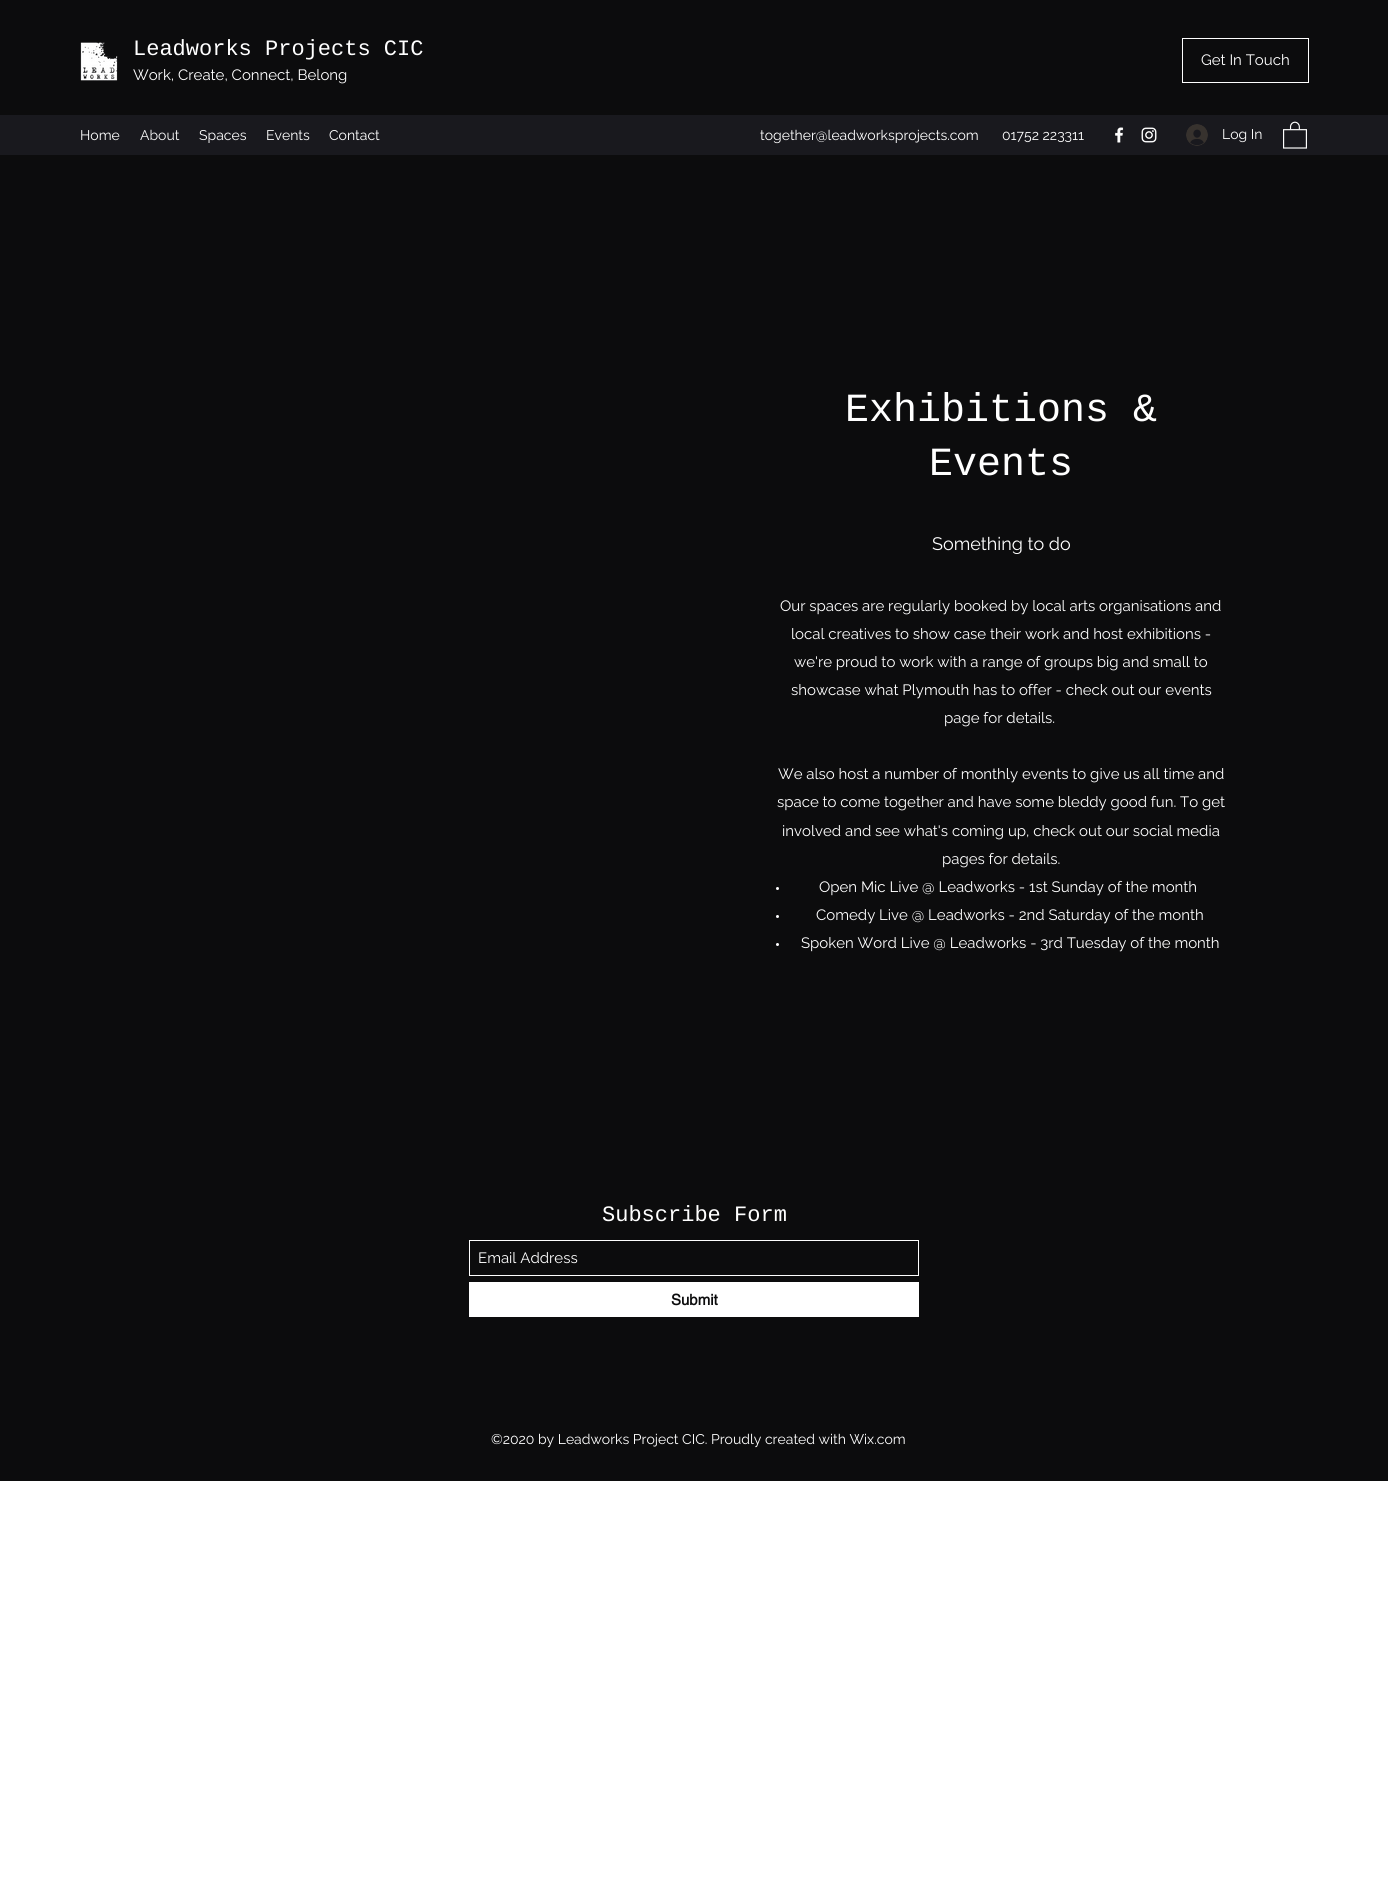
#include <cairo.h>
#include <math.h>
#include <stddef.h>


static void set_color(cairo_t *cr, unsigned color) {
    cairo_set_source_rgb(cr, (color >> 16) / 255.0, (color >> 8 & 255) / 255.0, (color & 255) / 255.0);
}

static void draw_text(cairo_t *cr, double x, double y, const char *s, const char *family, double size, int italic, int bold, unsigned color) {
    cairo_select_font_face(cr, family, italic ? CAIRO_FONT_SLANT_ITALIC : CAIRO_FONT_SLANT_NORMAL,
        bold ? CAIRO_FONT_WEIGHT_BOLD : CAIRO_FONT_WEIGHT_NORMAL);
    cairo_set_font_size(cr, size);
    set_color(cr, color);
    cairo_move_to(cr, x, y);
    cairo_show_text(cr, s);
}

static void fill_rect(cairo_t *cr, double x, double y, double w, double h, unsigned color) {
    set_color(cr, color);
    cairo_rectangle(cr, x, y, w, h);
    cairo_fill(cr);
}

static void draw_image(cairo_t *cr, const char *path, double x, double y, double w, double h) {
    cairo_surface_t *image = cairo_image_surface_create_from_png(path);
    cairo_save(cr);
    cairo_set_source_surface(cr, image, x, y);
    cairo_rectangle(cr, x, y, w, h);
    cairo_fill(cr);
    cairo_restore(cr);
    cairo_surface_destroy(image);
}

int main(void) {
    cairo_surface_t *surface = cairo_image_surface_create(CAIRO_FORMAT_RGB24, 1388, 1884);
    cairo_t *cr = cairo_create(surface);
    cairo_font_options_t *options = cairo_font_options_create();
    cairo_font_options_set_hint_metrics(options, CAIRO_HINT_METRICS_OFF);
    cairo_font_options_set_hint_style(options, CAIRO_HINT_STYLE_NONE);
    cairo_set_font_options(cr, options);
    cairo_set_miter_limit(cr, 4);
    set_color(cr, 0xFFFFFF);
    cairo_paint(cr);
    fill_rect(cr, 0, 0, 1388, 1481, 0x0C0C0D);
    draw_image(cr, "assets/img1.png", 80, 42, 38, 39);
    draw_text(cr, 133, 55, "Leadworks Projects CIC", "Liberation Mono", 22, 0, 0, 0xFFFFFF);
    draw_text(cr, 133, 80, "Work, Create, Connect, Belong", "Raleway", 15, 0, 0, 0xFFFFFF);
    cairo_rectangle(cr, 1182.5, 38.5, 126, 44);
    cairo_set_line_width(cr, 1);
    cairo_stroke(cr);
    draw_text(cr, 1201, 65, "Get In Touch", "Raleway", 15, 0, 0, 0xFFFFFF);
    fill_rect(cr, 0, 115, 1388, 40, 0x19191E);
    draw_text(cr, 80, 140, "Home", "Raleway", 14, 0, 0, 0xFFFFFF);
    draw_text(cr, 140, 140, "About", "Raleway", 14, 0, 0, 0xF7F7F7);
    draw_text(cr, 199, 140, "Spaces", "Raleway", 14, 0, 0, 0xFFFFFF);
    draw_text(cr, 266, 140, "Events", "Raleway", 14, 0, 0, 0xFFFFFF);
    draw_text(cr, 329, 140, "Contact", "Raleway", 14, 0, 0, 0xFFFFFF);
    draw_text(cr, 760, 140, "together@leadworksprojects.com", "Raleway", 14, 0, 0, 0xFFFFFF);
    draw_text(cr, 1002, 140, "01752 223311", "Raleway", 14, 0, 0, 0xFFFFFF);
    draw_image(cr, "assets/img2.png", 1115, 127, 9, 16);
    draw_image(cr, "assets/img3.png", 1141, 127, 16, 16);
    draw_image(cr, "assets/img4.png", 1186, 124, 22, 22);
    draw_text(cr, 1222, 139, "Log In", "Raleway", 14, 0, 0, 0xFFFFFF);
    draw_image(cr, "assets/img5.png", 1283, 121, 24, 28);
    draw_text(cr, 845, 421, "Exhibitions &", "Liberation Mono", 40, 0, 0, 0xFFFFFF);
    draw_text(cr, 929, 475, "Events", "Liberation Mono", 40, 0, 0, 0xFFFFFF);
    draw_text(cr, 932, 550, "Something to do", "Raleway", 18, 0, 0, 0xFFFFFF);
    draw_text(cr, 780, 611, "Our spaces are regularly booked by local arts organisations and", "Raleway", 15, 0, 0, 0xFFFFFF);
    draw_text(cr, 791, 639, "local creatives to show case their work and host exhibitions -", "Raleway", 15, 0, 0, 0xFFFFFF);
    draw_text(cr, 794, 667, "we're proud to work with a range of groups big and small to", "Raleway", 15, 0, 0, 0xFFFFFF);
    draw_text(cr, 791, 695, "showcase what Plymouth has to offer - check out our events", "Raleway", 15, 0, 0, 0xFFFFFF);
    draw_text(cr, 944, 723, "page for details.", "Raleway", 15, 0, 0, 0xFFFFFF);
    draw_text(cr, 778, 779, "We also host a number of monthly events to give us all time and", "Raleway", 15, 0, 0, 0xFFFFFF);
    draw_text(cr, 777, 807, "space to come together and have some bleddy good fun. To get", "Raleway", 15, 0, 0, 0xFFFFFF);
    draw_text(cr, 782, 836, "involved and see what's coming up, check out our social media", "Raleway", 15, 0, 0, 0xFFFFFF);
    draw_text(cr, 942, 864, "pages for details.", "Raleway", 15, 0, 0, 0xFFFFFF);
    cairo_new_path(cr);
    cairo_arc(cr, 777.5, 888.5, 1.5, 0, 2 * M_PI);
    cairo_fill(cr);
    draw_text(cr, 819, 892, "Open Mic Live @ Leadworks - 1st Sunday of the month", "Raleway", 15, 0, 0, 0xFFFFFF);
    cairo_new_path(cr);
    cairo_arc(cr, 777.5, 916.5, 1.5, 0, 2 * M_PI);
    cairo_fill(cr);
    draw_text(cr, 816, 920, "Comedy Live @ Leadworks - 2nd Saturday of the month", "Raleway", 15, 0, 0, 0xFFFFFF);
    cairo_new_path(cr);
    cairo_arc(cr, 777.5, 944.5, 1.5, 0, 2 * M_PI);
    cairo_fill(cr);
    draw_text(cr, 801, 948, "Spoken Word Live @ Leadworks - 3rd Tuesday of the month", "Raleway", 15, 0, 0, 0xFFFFFF);
    draw_text(cr, 602, 1221, "Subscribe Form", "Liberation Mono", 22, 0, 0, 0xFFFFFF);
    cairo_rectangle(cr, 469.5, 1240.5, 449, 35);
    cairo_stroke(cr);
    draw_text(cr, 478, 1263, "Email Address", "Raleway", 15, 0, 0, 0xFFFFFF);
    fill_rect(cr, 469, 1282, 450, 35, 0xFFFFFF);
    draw_text(cr, 671, 1305, "Submit", "helvetica", 15, 0, 1, 0x0C0C0D);
    draw_text(cr, 491, 1444, "©2020 by Leadworks Project CIC. Proudly created with Wix.com", "Raleway", 14, 0, 0, 0xFFFFFF);
    cairo_surface_write_to_png(surface, "output.png");
    cairo_font_options_destroy(options);
    cairo_destroy(cr);
    cairo_surface_destroy(surface);
    return 0;
}
